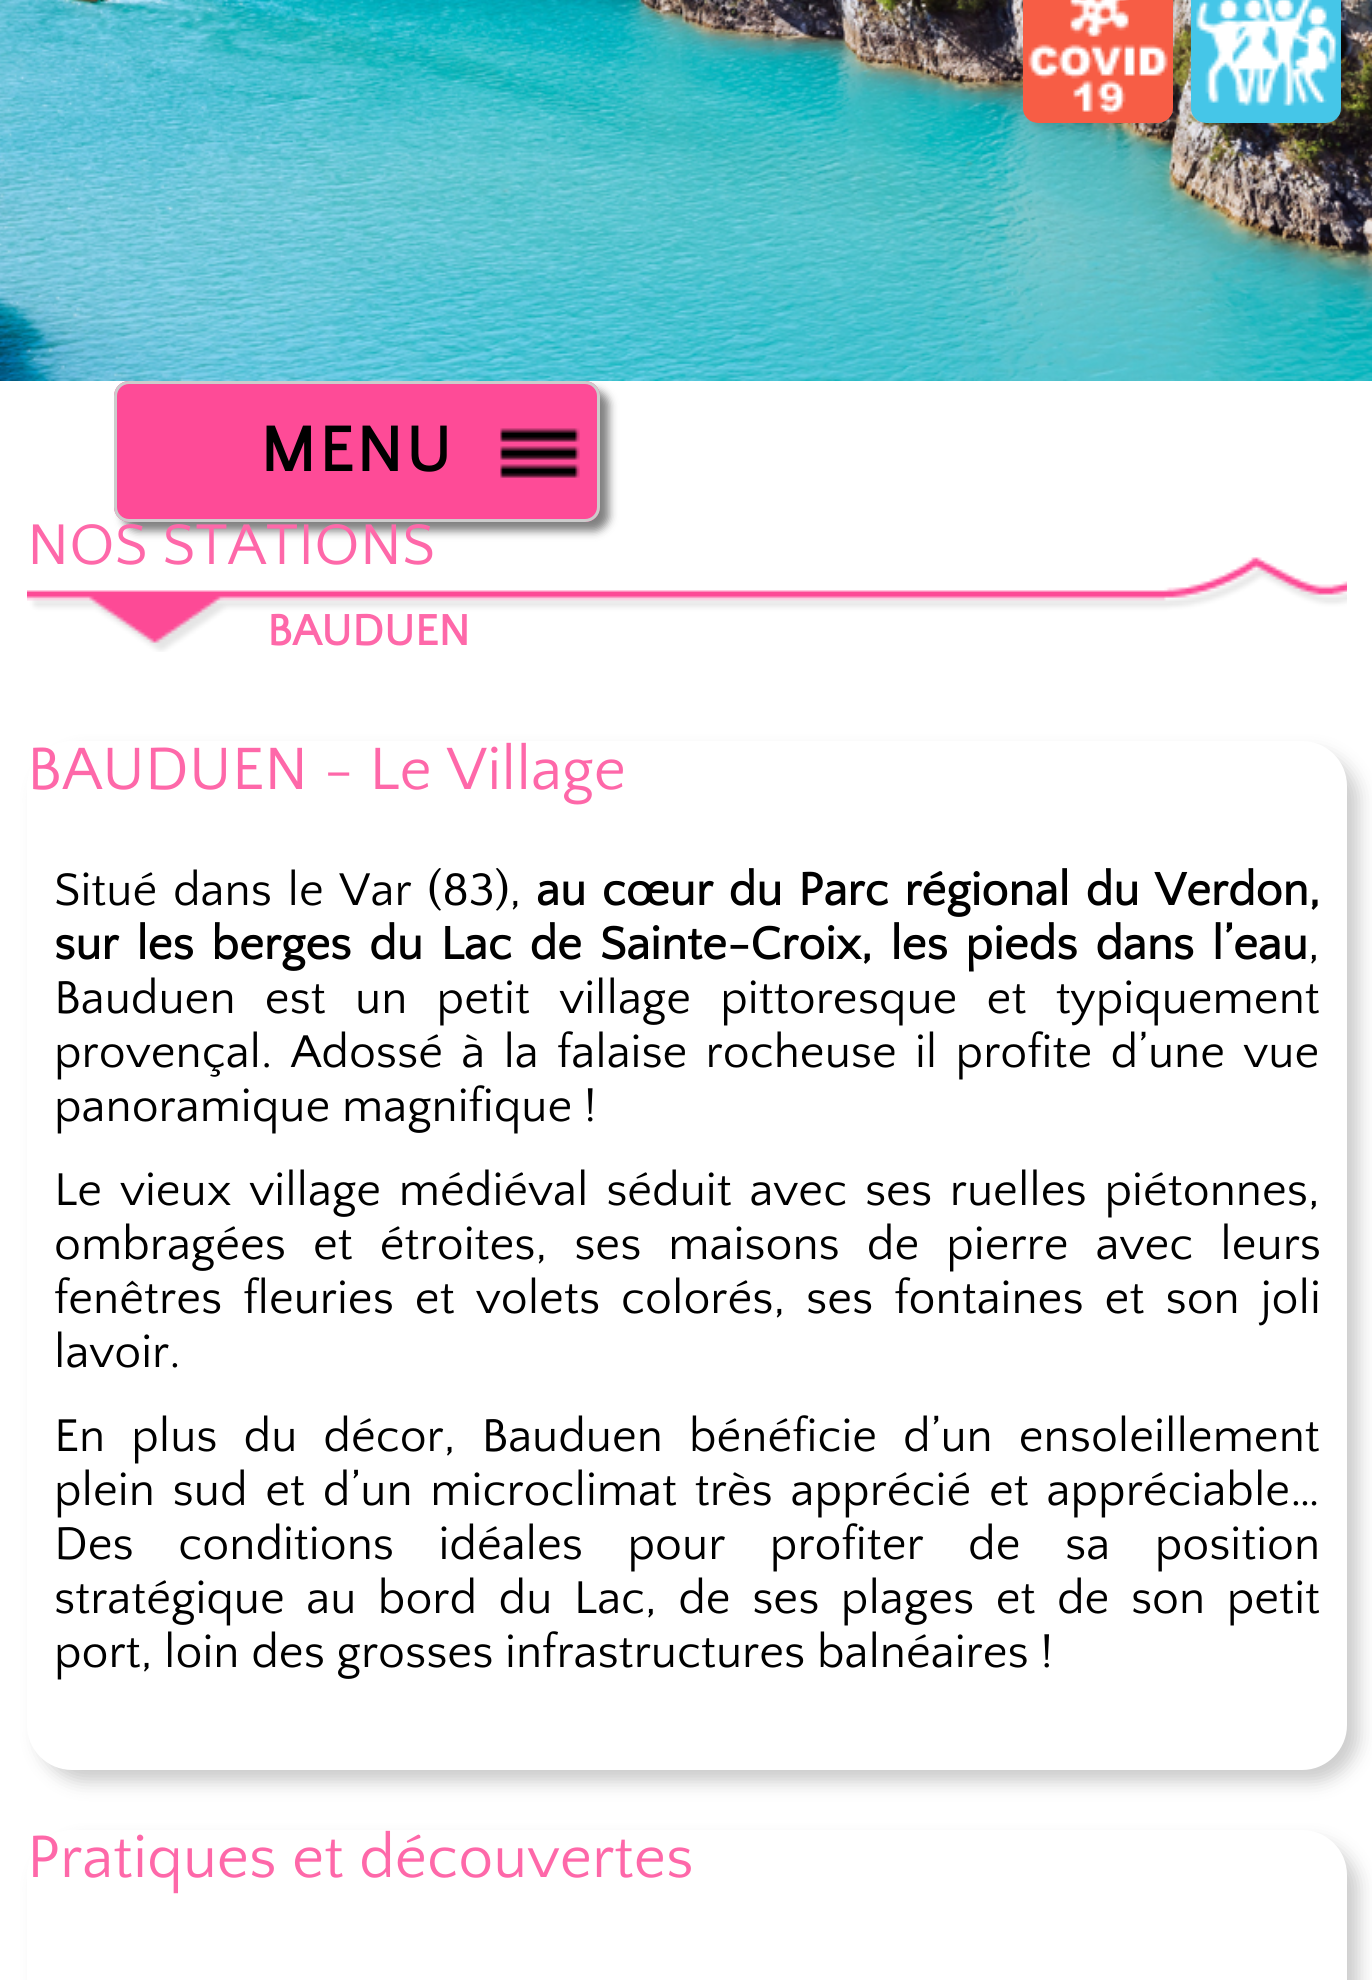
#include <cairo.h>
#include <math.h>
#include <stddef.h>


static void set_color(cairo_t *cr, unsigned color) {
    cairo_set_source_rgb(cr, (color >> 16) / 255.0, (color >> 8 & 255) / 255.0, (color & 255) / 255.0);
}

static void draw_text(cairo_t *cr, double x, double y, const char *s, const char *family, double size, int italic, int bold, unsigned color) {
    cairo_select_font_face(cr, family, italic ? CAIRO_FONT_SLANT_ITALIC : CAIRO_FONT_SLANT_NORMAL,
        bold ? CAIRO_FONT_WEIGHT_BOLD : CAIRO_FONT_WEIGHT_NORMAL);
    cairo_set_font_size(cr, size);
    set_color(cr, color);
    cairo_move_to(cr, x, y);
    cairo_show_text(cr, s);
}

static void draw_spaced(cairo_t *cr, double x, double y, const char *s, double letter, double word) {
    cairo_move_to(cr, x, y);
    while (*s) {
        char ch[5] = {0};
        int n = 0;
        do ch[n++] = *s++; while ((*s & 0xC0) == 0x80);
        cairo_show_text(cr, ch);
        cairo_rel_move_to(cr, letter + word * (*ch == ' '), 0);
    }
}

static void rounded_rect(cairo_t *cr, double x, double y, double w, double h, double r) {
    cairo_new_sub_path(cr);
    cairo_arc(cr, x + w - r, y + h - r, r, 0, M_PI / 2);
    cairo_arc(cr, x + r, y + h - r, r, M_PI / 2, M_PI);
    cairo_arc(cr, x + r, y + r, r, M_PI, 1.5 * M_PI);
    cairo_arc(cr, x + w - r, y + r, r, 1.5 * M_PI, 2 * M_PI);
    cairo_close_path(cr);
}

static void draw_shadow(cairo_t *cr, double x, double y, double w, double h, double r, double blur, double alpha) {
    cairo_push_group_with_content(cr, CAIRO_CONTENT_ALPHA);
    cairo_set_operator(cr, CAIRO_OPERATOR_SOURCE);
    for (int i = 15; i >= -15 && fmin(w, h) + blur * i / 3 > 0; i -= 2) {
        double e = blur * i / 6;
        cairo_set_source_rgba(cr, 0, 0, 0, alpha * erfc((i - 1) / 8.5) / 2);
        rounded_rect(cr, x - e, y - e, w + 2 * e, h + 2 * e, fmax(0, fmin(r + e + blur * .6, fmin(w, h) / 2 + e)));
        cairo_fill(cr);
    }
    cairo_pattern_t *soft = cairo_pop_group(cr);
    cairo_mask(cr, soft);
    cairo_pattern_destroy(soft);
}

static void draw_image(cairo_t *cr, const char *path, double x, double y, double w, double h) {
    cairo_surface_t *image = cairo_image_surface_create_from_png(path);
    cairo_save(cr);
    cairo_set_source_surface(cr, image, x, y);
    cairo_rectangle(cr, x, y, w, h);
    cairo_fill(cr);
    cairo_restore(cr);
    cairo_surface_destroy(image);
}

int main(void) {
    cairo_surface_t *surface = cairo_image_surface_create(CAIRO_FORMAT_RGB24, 1372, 1980);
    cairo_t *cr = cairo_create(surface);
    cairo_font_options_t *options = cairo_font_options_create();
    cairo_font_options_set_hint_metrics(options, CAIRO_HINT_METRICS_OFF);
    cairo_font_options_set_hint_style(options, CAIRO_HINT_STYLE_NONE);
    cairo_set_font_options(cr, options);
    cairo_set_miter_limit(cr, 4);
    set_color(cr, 0xFFFFFF);
    cairo_paint(cr);
    draw_image(cr, "assets/img1.png", 0, 0, 1372, 381);
    set_color(cr, 0x000000);
    draw_shadow(cr, 1029, -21, 150, 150, 15, 3, 0.1);
    draw_image(cr, "assets/img2.png", 1023, 0, 150, 123);
    draw_shadow(cr, 1197, -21, 150, 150, 15, 3, 0.1);
    draw_image(cr, "assets/img3.png", 1191, 0, 150, 123);
    draw_shadow(cr, 123, 390, 486, 141, 15, 4.5, 0.5);
    set_color(cr, 0xFE4B97);
    rounded_rect(cr, 114, 381, 486, 141, 15);
    cairo_fill(cr);
    draw_image(cr, "assets/img4.png", 500, 428, 80, 50);
    rounded_rect(cr, 115.5, 382.5, 483, 138, 13.5);
    set_color(cr, 0xCCCCCC);
    cairo_set_line_width(cr, 3);
    cairo_stroke(cr);
    cairo_select_font_face(cr, "Quattrocento Sans", CAIRO_FONT_SLANT_NORMAL, CAIRO_FONT_WEIGHT_BOLD);
    cairo_set_font_size(cr, 66);
    set_color(cr, 0x000000);
    draw_spaced(cr, 260, 471, "MENU", 3, 0);
    draw_image(cr, "assets/img5.png", 27, 557, 1320, 95);
    draw_text(cr, 27, 564, "NOS STATIONS", "Quattrocento Sans", 60, 0, 0, 0xFE68A9);
    draw_text(cr, 267, 645, "BAUDUEN", "Quattrocento Sans", 45, 0, 1, 0xFE68A9);
    set_color(cr, 0x000000);
    draw_shadow(cr, 39, 753, 1320, 1029, 45, 9, 0.2);
    set_color(cr, 0xFFFFFF);
    rounded_rect(cr, 27, 741, 1320, 1029, 45);
    cairo_fill(cr);
    draw_text(cr, 27, 789, "BAUDUEN - Le Village", "Quattrocento Sans", 62.4, 0, 0, 0xFE68A9);
    cairo_set_font_size(cr, 48);
    set_color(cr, 0x000000);
    draw_spaced(cr, 54, 905, "Situé dans le Var (83),", 0, 4);
    cairo_select_font_face(cr, "Quattrocento Sans", CAIRO_FONT_SLANT_NORMAL, CAIRO_FONT_WEIGHT_BOLD);
    draw_spaced(cr, 536, 905, "au cœur du Parc régional du Verdon,", 0, 4);
    draw_spaced(cr, 54, 959, "sur les berges du Lac de Sainte-Croix, les pieds dans l’eau", 0, 6);
    draw_text(cr, 1308, 959, ",", "Quattrocento Sans", 48, 0, 0, 0x000000);
    draw_spaced(cr, 54, 1013, "Bauduen est un petit village pittoresque et typiquement", 0, 17.5);
    draw_spaced(cr, 54, 1067, "provençal. Adossé à la falaise rocheuse il profite d’une vue", 0, 6.5);
    draw_text(cr, 54, 1121, "panoramique magnifique !", "Quattrocento Sans", 48, 0, 0, 0x000000);
    draw_spaced(cr, 54, 1205, "Le vieux village médiéval séduit avec ses ruelles piétonnes,", 0, 6);
    draw_spaced(cr, 54, 1259, "ombragées et étroites, ses maisons de pierre avec leurs", 0, 15.25);
    draw_spaced(cr, 54, 1313, "fenêtres fleuries et volets colorés, ses fontaines et son joli", 0, 9.25);
    draw_text(cr, 54, 1367, "lavoir.", "Quattrocento Sans", 48, 0, 0, 0x000000);
    draw_spaced(cr, 54, 1451, "En plus du décor, Bauduen bénéficie d’un ensoleillement", 0, 14.25);
    draw_spaced(cr, 54, 1505, "plein sud et d’un microclimat très apprécié et appréciable…", 0, 6);
    draw_spaced(cr, 54, 1559, "Des conditions idéales pour profiter de sa position", 0, 32.75);
    draw_spaced(cr, 54, 1613, "stratégique au bord du Lac, de ses plages et de son petit", 0, 9.75);
    draw_text(cr, 54, 1667, "port, loin des grosses infrastructures balnéaires !", "Quattrocento Sans", 48, 0, 0, 0x000000);
    set_color(cr, 0x000000);
    draw_shadow(cr, 39, 1842, 1320, 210, 45, 9, 0.2);
    set_color(cr, 0xFFFFFF);
    rounded_rect(cr, 27, 1830, 1320, 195, 45);
    cairo_fill(cr);
    draw_text(cr, 27, 1877, "Pratiques et découvertes", "Quattrocento Sans", 62.4, 0, 0, 0xFE68A9);
    cairo_surface_write_to_png(surface, "output.png");
    cairo_font_options_destroy(options);
    cairo_destroy(cr);
    cairo_surface_destroy(surface);
    return 0;
}
